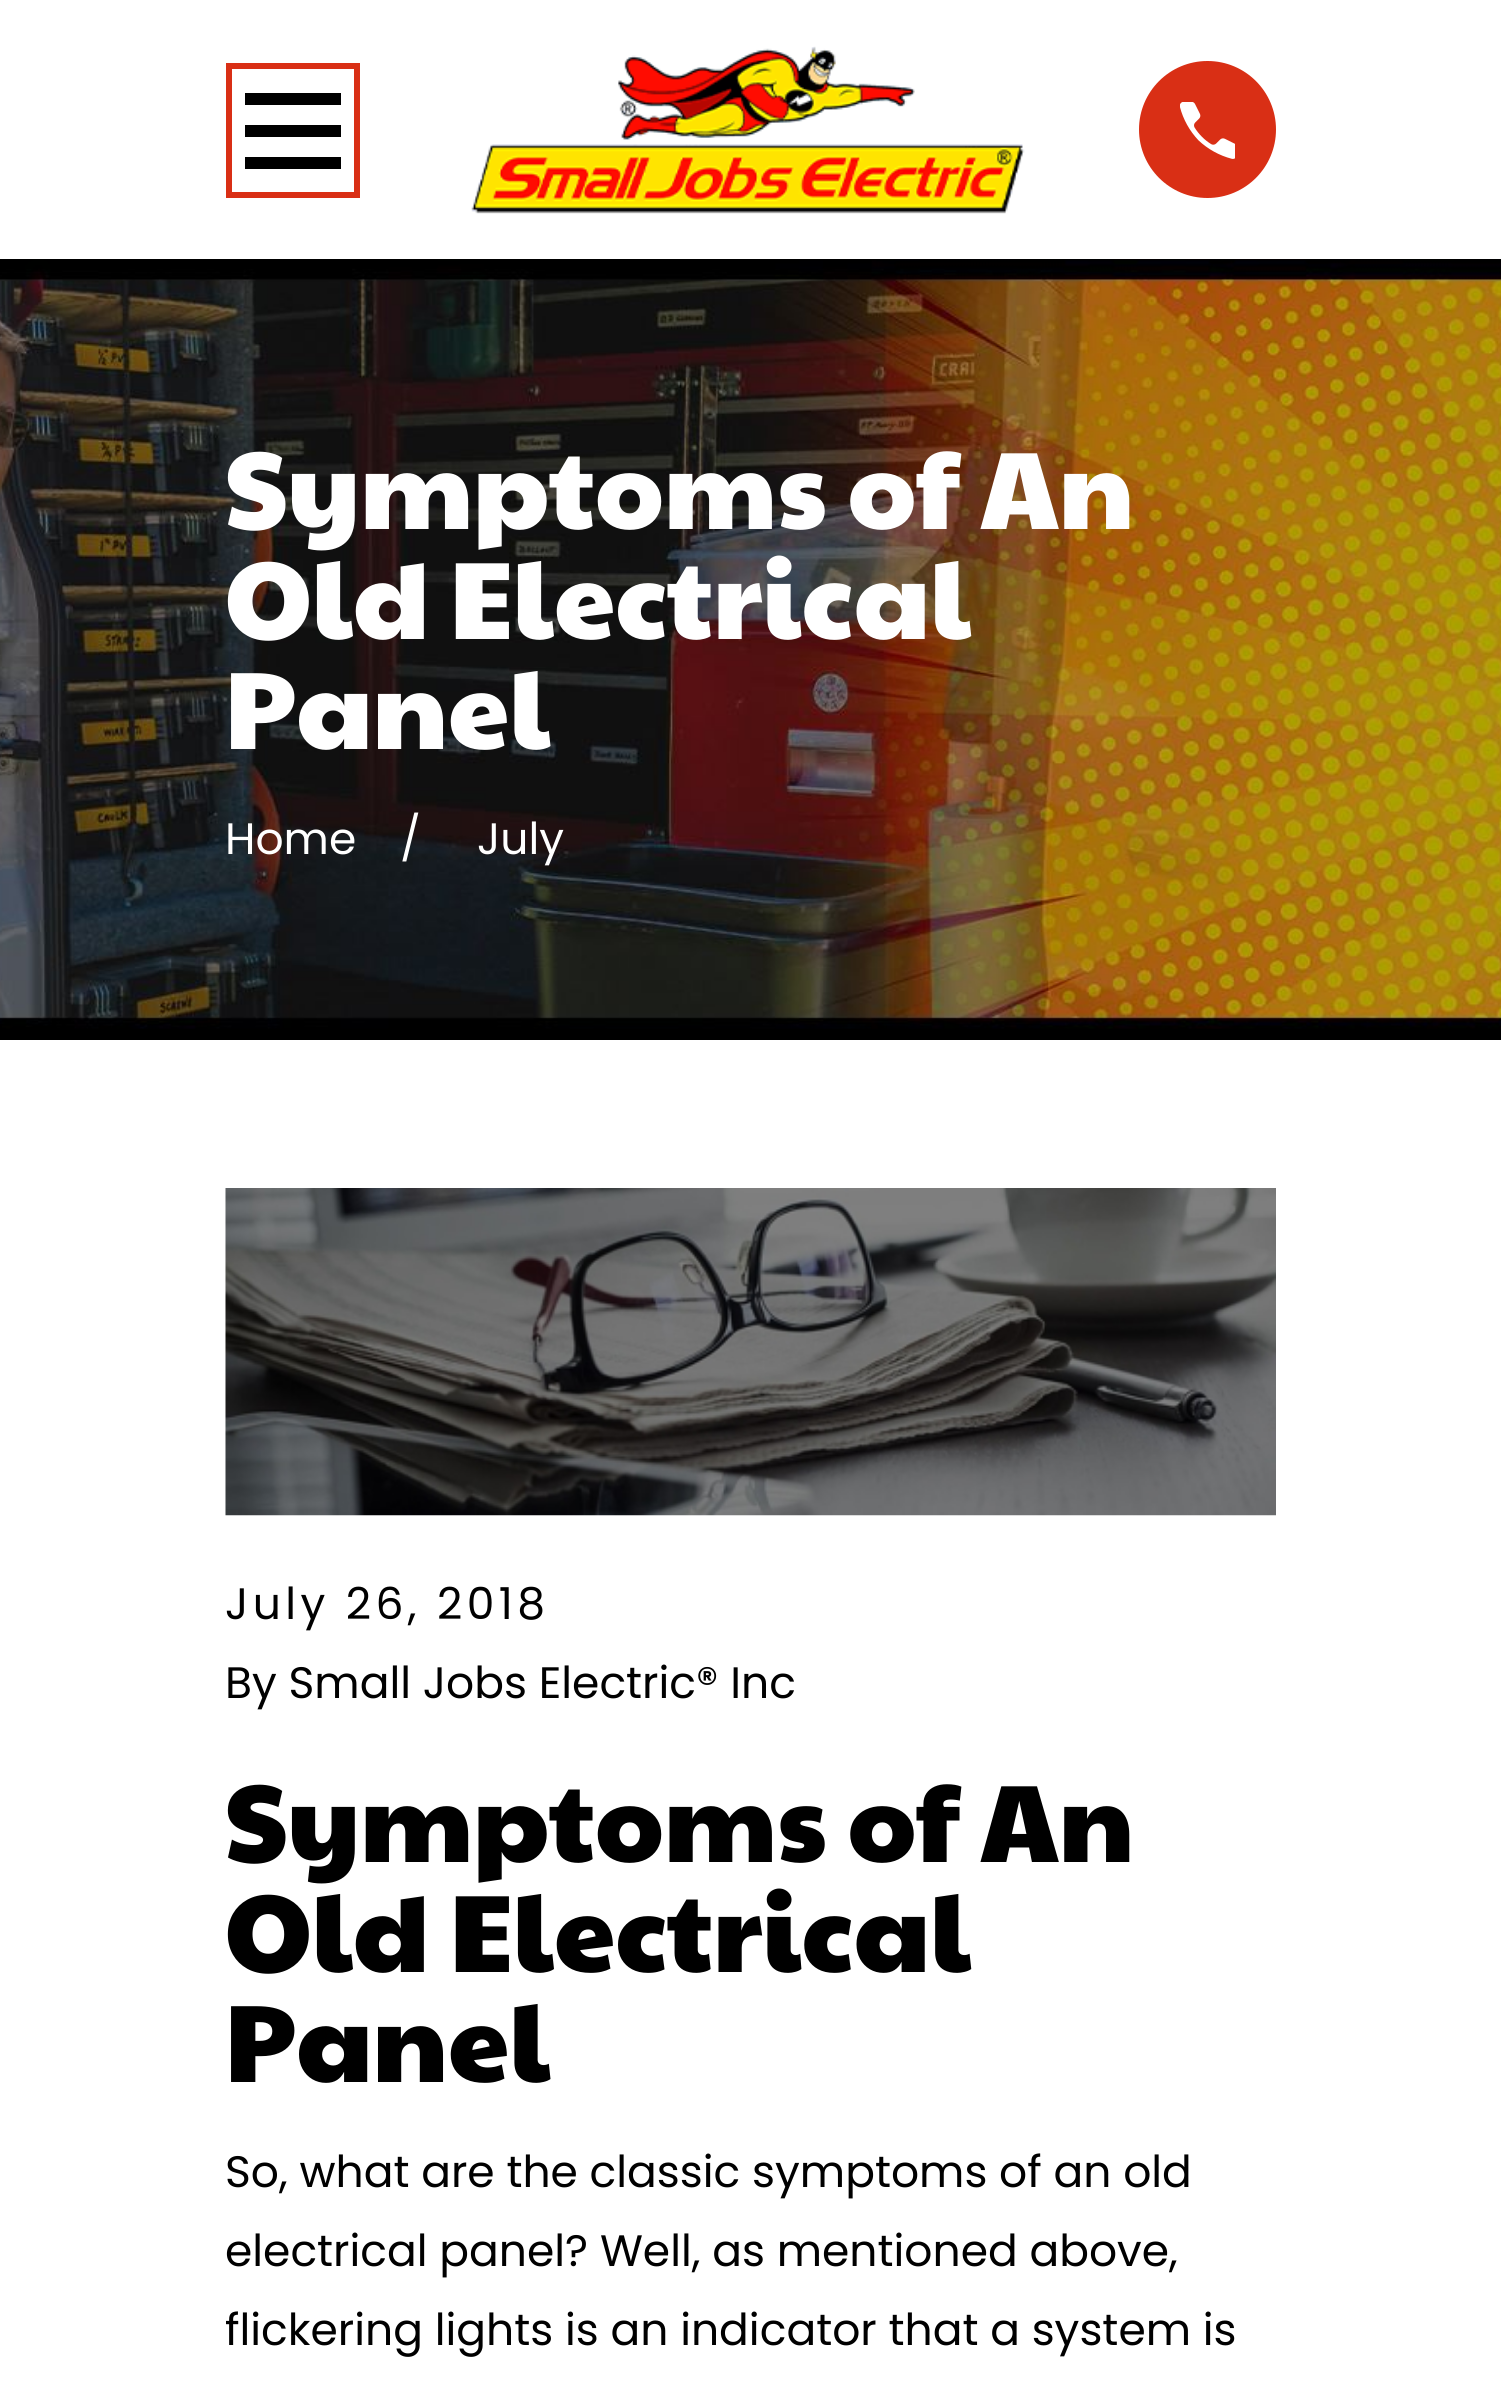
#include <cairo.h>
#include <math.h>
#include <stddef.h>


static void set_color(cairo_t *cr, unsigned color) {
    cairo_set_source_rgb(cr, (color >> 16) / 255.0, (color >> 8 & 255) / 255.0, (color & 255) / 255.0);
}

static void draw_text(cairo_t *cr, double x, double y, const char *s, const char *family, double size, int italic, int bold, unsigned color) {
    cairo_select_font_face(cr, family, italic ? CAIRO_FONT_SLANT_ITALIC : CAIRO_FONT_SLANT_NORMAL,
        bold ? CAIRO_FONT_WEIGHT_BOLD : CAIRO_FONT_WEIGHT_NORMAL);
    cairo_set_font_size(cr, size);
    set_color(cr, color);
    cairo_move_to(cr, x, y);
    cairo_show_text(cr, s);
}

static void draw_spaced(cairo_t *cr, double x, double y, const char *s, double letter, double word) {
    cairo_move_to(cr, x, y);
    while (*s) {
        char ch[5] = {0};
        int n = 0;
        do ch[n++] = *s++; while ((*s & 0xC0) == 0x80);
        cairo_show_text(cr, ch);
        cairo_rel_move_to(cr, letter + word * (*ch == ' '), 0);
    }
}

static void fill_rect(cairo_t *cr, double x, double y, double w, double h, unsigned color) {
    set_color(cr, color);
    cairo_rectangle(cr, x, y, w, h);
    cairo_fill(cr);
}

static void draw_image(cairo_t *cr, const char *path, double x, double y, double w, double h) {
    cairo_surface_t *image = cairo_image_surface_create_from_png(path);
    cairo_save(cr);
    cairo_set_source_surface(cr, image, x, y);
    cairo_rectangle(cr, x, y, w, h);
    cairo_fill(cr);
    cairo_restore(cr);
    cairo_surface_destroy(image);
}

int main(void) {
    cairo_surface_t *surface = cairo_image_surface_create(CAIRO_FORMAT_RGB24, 1501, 2399);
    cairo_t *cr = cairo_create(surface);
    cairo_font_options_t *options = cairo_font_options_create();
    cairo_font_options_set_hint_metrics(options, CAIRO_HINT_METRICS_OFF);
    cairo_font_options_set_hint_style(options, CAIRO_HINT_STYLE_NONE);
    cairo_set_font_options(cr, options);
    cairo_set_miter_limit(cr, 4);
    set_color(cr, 0xFFFFFF);
    cairo_paint(cr);
    cairo_rectangle(cr, 229, 66, 128, 129);
    set_color(cr, 0xD92F15);
    cairo_set_line_width(cr, 6);
    cairo_stroke(cr);
    cairo_save(cr);
    cairo_rectangle(cr, 245, 83, 96, 96);
    cairo_clip(cr);
    set_color(cr, 0x000000);
    cairo_new_path(cr);
    cairo_move_to(cr, 245, 93);
    cairo_line_to(cr, 245, 105);
    cairo_line_to(cr, 342, 105);
    cairo_line_to(cr, 342, 93);
    cairo_close_path(cr);
    cairo_move_to(cr, 245, 125);
    cairo_line_to(cr, 245, 137);
    cairo_line_to(cr, 342, 137);
    cairo_line_to(cr, 342, 125);
    cairo_close_path(cr);
    cairo_move_to(cr, 245, 157);
    cairo_line_to(cr, 245, 169);
    cairo_line_to(cr, 342, 169);
    cairo_line_to(cr, 342, 157);
    cairo_close_path(cr);
    cairo_fill(cr);
    cairo_restore(cr);
    draw_image(cr, "assets/img1.png", 471, 46, 554, 168);
    cairo_arc(cr, 1207.5, 129.5, 68.5, 0, 2 * M_PI);
    cairo_fill(cr);
    draw_image(cr, "assets/img2.png", 1180, 102, 55, 57);
    fill_rect(cr, 0, 1029, 1501, 11, 0x000000);
    draw_image(cr, "assets/img3.png", 0, 259, 1501, 770);
    draw_text(cr, 225, 529, "Symptoms of An", "Paytone One", 110, 0, 0, 0xFFFFFF);
    draw_text(cr, 225, 639, "Old Electrical", "Paytone One", 110, 0, 0, 0xFFFFFF);
    draw_text(cr, 225, 749, "Panel", "Paytone One", 110, 0, 0, 0xFFFFFF);
    draw_text(cr, 225, 854, "Home", "Poppins", 44, 0, 0, 0xFFFFFF);
    draw_text(cr, 400, 854, "/", "Poppins", 44, 0, 0, 0xFFFFFF);
    draw_text(cr, 477, 854, "July", "Poppins", 44, 0, 0, 0xFFFFFF);
    draw_image(cr, "assets/img4.png", 225, 1188, 1051, 328);
    set_color(cr, 0x000000);
    draw_spaced(cr, 225, 1619, "July 26, 2018", 4.4, 0);
    draw_text(cr, 225, 1698, "By Small Jobs Electric® Inc", "Poppins", 44, 0, 0, 0x000000);
    draw_text(cr, 225, 1862, "Symptoms of An", "Paytone One", 110, 0, 0, 0x000000);
    draw_text(cr, 225, 1972, "Old Electrical", "Paytone One", 110, 0, 0, 0x000000);
    draw_text(cr, 225, 2082, "Panel", "Paytone One", 110, 0, 0, 0x000000);
    draw_text(cr, 225, 2187, "So, what are the classic symptoms of an old", "Poppins", 44, 0, 0, 0x000000);
    draw_text(cr, 225, 2266, "electrical panel? Well, as mentioned above,", "Poppins", 44, 0, 0, 0x000000);
    draw_text(cr, 225, 2345, "flickering lights is an indicator that a system is", "Poppins", 44, 0, 0, 0x000000);
    cairo_surface_write_to_png(surface, "output.png");
    cairo_font_options_destroy(options);
    cairo_destroy(cr);
    cairo_surface_destroy(surface);
    return 0;
}
